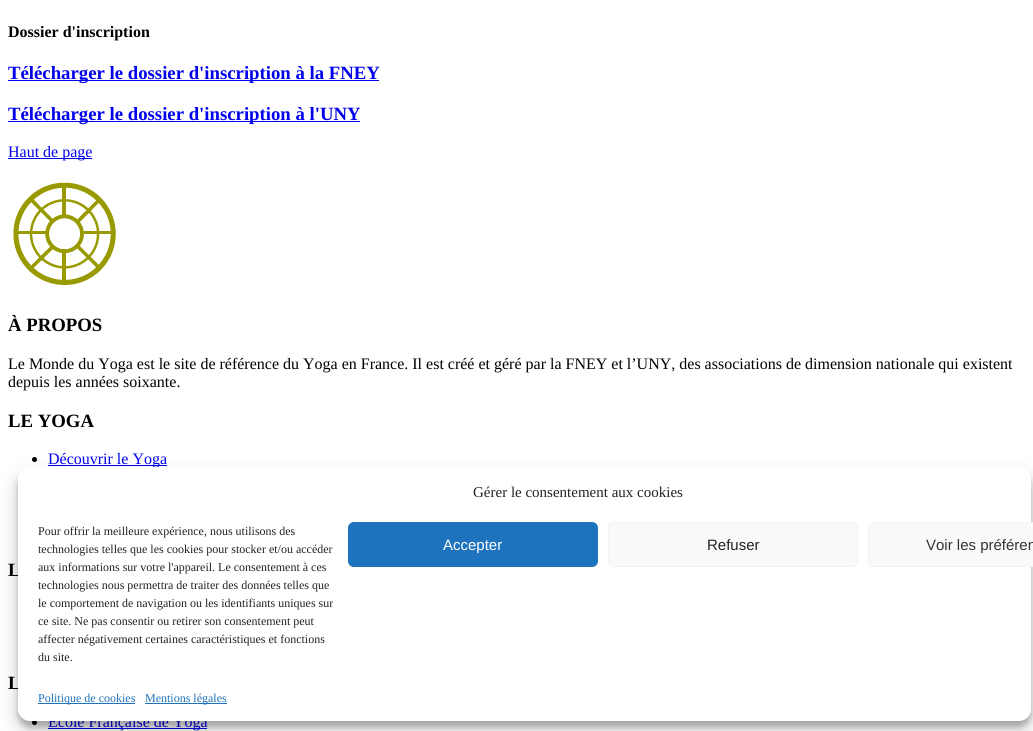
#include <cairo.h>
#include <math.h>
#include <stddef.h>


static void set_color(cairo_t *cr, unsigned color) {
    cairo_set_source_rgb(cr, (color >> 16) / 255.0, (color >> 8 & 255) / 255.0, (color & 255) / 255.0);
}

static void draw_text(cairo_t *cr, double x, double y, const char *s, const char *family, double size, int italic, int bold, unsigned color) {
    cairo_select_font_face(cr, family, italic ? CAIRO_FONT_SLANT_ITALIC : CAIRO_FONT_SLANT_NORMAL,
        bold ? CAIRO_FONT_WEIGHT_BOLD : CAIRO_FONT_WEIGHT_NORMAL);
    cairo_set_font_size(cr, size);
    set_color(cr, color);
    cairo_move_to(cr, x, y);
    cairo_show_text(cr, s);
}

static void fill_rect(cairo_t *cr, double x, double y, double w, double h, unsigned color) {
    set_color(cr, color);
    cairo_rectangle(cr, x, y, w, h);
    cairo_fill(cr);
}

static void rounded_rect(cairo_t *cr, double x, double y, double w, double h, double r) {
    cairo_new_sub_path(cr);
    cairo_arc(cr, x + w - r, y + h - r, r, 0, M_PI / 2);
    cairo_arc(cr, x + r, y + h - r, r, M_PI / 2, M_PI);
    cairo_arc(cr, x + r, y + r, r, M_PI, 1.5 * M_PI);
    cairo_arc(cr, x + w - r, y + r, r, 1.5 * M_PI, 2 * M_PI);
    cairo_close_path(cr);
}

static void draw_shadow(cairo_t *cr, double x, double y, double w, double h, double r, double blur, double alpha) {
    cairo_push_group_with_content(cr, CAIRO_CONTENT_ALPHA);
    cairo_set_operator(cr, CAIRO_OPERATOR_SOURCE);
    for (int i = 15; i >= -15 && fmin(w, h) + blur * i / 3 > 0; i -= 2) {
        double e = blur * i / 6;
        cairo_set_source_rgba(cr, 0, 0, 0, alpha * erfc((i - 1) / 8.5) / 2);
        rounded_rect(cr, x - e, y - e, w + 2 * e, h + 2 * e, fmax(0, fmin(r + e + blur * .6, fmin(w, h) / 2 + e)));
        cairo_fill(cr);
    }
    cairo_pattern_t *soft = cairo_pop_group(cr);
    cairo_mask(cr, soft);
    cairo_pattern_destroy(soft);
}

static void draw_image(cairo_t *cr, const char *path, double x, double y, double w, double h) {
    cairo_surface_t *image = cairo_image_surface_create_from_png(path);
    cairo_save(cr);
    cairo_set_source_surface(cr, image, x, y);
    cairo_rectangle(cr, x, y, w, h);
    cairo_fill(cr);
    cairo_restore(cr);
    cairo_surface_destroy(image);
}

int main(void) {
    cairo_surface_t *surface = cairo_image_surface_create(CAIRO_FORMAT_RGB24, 1033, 731);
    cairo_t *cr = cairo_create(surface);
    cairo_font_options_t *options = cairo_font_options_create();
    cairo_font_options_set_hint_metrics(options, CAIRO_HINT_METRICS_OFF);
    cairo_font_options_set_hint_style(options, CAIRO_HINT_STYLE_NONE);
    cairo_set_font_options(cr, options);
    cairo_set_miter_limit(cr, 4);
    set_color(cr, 0xFFFFFF);
    cairo_paint(cr);
    draw_text(cr, 8, 37, "Dossier d'inscription", "Liberation Serif", 16, 0, 1, 0x000000);
    fill_rect(cr, 8, 80, 371, 1, 0x0000EE);
    draw_text(cr, 8, 79, "Télécharger le dossier d'inscription à la FNEY", "Liberation Serif", 18.75, 0, 1, 0x0000EE);
    fill_rect(cr, 8, 121, 352, 1, 0x0000EE);
    draw_text(cr, 8, 120, "Télécharger le dossier d'inscription à l'UNY", "Liberation Serif", 18.75, 0, 1, 0x0000EE);
    fill_rect(cr, 8, 158, 84, 1, 0x0000EE);
    draw_text(cr, 8, 157, "Haut de page", "Liberation Serif", 16, 0, 0, 0x0000EE);
    draw_image(cr, "assets/img1.png", 13, 182, 103, 103);
    draw_text(cr, 8, 331, "À PROPOS", "Liberation Serif", 18.75, 0, 1, 0x000000);
    draw_text(cr, 8, 369, "Le Monde du Yoga est le site de référence du Yoga en France. Il est créé et géré par la FNEY et l’UNY, des associations de dimension nationale qui existent", "Liberation Serif", 16, 0, 0, 0x000000);
    draw_text(cr, 8, 387, "depuis les années soixante.", "Liberation Serif", 16, 0, 0, 0x000000);
    draw_text(cr, 8, 427, "LE YOGA", "Liberation Serif", 18.75, 0, 1, 0x000000);
    cairo_new_path(cr);
    cairo_arc(cr, 34.5, 459.5, 2.5, 0, 2 * M_PI);
    cairo_fill(cr);
    fill_rect(cr, 48, 465, 119, 1, 0x0000EE);
    draw_text(cr, 48, 464, "Découvrir le Yoga", "Liberation Serif", 16, 0, 0, 0x0000EE);
    draw_text(cr, 8, 576, "L", "Liberation Serif", 18.75, 0, 1, 0x000000);
    draw_text(cr, 8, 689, "L", "Liberation Serif", 18.75, 0, 1, 0x000000);
    cairo_new_path(cr);
    cairo_arc(cr, 34.5, 722.5, 2.5, 0, 2 * M_PI);
    cairo_fill(cr);
    fill_rect(cr, 48, 728, 159, 1, 0x0000EE);
    draw_text(cr, 48, 727, "École Française de Yoga", "Liberation Serif", 16, 0, 0, 0x0000EE);
    set_color(cr, 0x000000);
    draw_shadow(cr, 18, 473, 1013, 254, 12, 3, 0.23);
    draw_shadow(cr, 18, 477, 1013, 254, 12, 10, 0.19);
    set_color(cr, 0xFFFFFF);
    rounded_rect(cr, 18, 467, 1013, 254, 12);
    cairo_fill(cr);
    draw_text(cr, 473, 497, "Gérer le consentement aux cookies", "Liberation Serif", 15, 0, 0, 0x222222);
    draw_text(cr, 38, 535, "Pour offrir la meilleure expérience, nous utilisons des", "Liberation Serif", 12, 0, 0, 0x222222);
    draw_text(cr, 38, 553, "technologies telles que les cookies pour stocker et/ou accéder", "Liberation Serif", 12, 0, 0, 0x222222);
    draw_text(cr, 38, 571, "aux informations sur votre l'appareil. Le consentement à ces", "Liberation Serif", 12, 0, 0, 0x222222);
    draw_text(cr, 38, 589, "technologies nous permettra de traiter des données telles que", "Liberation Serif", 12, 0, 0, 0x222222);
    draw_text(cr, 38, 607, "le comportement de navigation ou les identifiants uniques sur", "Liberation Serif", 12, 0, 0, 0x222222);
    draw_text(cr, 38, 625, "ce site. Ne pas consentir ou retirer son consentement peut", "Liberation Serif", 12, 0, 0, 0x222222);
    draw_text(cr, 38, 643, "affecter négativement certaines caractéristiques et fonctions", "Liberation Serif", 12, 0, 0, 0x222222);
    draw_text(cr, 38, 661, "du site.", "Liberation Serif", 12, 0, 0, 0x222222);
    set_color(cr, 0x1E73BE);
    rounded_rect(cr, 348.5, 522.5, 249, 44, 5.5);
    cairo_fill_preserve(cr);
    cairo_set_line_width(cr, 1);
    cairo_stroke(cr);
    draw_text(cr, 443, 550, "Accepter", "Liberation Sans", 15, 0, 0, 0xFFFFFF);
    set_color(cr, 0xF9F9F9);
    rounded_rect(cr, 608.5, 522.5, 249, 44, 5.5);
    cairo_fill_preserve(cr);
    set_color(cr, 0xF2F2F2);
    cairo_stroke(cr);
    draw_text(cr, 707, 550, "Refuser", "Liberation Sans", 15, 0, 0, 0x222222);
    set_color(cr, 0xF9F9F9);
    rounded_rect(cr, 868.5, 522.5, 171, 44, 5.5);
    cairo_fill_preserve(cr);
    set_color(cr, 0xF2F2F2);
    cairo_stroke(cr);
    draw_text(cr, 926, 550, "Voir les préféren", "Liberation Sans", 15, 0, 0, 0x333333);
    fill_rect(cr, 38, 703, 97, 1, 0x1E73BE);
    draw_text(cr, 38, 702, "Politique de cookies", "Liberation Serif", 12, 0, 0, 0x1E73BE);
    fill_rect(cr, 145, 703, 82, 1, 0x1E73BE);
    draw_text(cr, 145, 702, "Mentions légales", "Liberation Serif", 12, 0, 0, 0x1E73BE);
    cairo_surface_write_to_png(surface, "output.png");
    cairo_font_options_destroy(options);
    cairo_destroy(cr);
    cairo_surface_destroy(surface);
    return 0;
}
